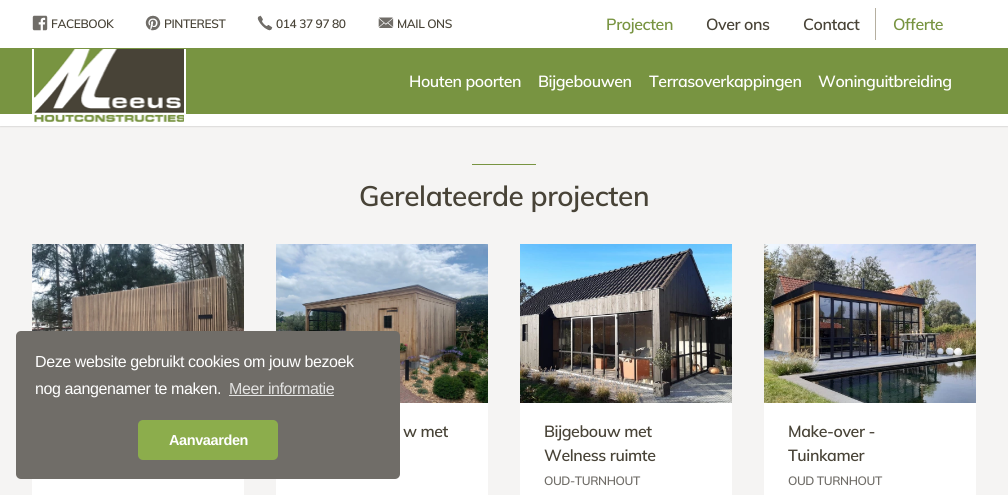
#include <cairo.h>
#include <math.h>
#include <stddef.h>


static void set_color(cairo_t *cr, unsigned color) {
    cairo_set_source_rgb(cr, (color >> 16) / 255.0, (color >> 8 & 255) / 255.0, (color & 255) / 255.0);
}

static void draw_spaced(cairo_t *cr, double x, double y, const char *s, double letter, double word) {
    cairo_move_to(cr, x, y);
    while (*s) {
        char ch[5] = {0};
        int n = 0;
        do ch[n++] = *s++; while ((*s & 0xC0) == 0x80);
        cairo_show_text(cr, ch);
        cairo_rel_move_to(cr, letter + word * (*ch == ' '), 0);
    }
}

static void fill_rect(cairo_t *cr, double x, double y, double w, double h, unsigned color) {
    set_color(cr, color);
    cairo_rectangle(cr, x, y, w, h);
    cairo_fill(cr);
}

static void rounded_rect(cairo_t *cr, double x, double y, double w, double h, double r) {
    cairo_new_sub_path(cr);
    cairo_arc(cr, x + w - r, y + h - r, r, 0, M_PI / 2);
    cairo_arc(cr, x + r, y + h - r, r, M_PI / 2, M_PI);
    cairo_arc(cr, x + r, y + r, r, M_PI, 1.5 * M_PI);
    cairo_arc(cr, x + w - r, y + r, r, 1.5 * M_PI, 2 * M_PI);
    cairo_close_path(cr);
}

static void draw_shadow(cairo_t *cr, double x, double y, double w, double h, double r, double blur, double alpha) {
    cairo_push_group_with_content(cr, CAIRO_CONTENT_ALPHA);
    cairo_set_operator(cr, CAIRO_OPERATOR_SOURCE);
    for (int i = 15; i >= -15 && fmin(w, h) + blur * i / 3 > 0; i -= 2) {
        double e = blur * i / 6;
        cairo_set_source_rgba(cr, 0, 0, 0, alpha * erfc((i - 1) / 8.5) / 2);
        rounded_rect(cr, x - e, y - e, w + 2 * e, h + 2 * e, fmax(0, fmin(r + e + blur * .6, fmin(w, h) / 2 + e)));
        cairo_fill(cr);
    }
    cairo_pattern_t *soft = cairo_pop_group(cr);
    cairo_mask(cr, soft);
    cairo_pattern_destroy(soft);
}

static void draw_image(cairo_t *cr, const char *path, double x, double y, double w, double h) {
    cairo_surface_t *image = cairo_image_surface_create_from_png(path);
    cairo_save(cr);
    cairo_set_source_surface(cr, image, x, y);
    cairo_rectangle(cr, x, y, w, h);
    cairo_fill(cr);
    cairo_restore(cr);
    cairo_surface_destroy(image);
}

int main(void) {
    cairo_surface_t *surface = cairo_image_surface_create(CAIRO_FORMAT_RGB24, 1008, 495);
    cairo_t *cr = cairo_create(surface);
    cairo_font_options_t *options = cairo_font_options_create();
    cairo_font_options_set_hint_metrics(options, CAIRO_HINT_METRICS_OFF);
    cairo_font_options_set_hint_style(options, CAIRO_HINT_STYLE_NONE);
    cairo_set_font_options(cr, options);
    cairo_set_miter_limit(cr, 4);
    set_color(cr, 0xF5F4F3);
    cairo_paint(cr);
    set_color(cr, 0x000000);
    draw_shadow(cr, 0, 1, 1008, 126, 0, 0.5, 0.1);
    fill_rect(cr, 0, 48, 1008, 66, 0x789441);
    fill_rect(cr, 0, 0, 1008, 48, 0xFFFFFF);
    fill_rect(cr, 0, 114, 1008, 12, 0xFFFFFF);
    draw_image(cr, "assets/img1.png", 32, 15, 16, 16);
    cairo_select_font_face(cr, "Muli SemiBold", CAIRO_FONT_SLANT_NORMAL, CAIRO_FONT_WEIGHT_NORMAL);
    cairo_set_font_size(cr, 12);
    set_color(cr, 0x484337);
    draw_spaced(cr, 51, 28, "FACEBOOK", -0.4, 0);
    draw_image(cr, "assets/img2.png", 145, 15, 16, 16);
    draw_spaced(cr, 164, 28, "PINTEREST", -0.4, 0);
    draw_image(cr, "assets/img3.png", 257, 15, 16, 16);
    draw_spaced(cr, 276, 28, "014 37 97 80", -0.4, 0);
    draw_image(cr, "assets/img4.png", 378, 17, 16, 11);
    draw_spaced(cr, 397, 28, "MAIL ONS", -0.4, 0);
    cairo_set_font_size(cr, 16);
    set_color(cr, 0x789441);
    draw_spaced(cr, 606, 30, "Projecten", -0.4, 0);
    set_color(cr, 0x484337);
    draw_spaced(cr, 706, 30, "Over ons", -0.4, 0);
    fill_rect(cr, 875, 8, 1, 32, 0xB5AFA0);
    set_color(cr, 0x484337);
    draw_spaced(cr, 803, 30, "Contact", -0.4, 0);
    set_color(cr, 0x789441);
    draw_spaced(cr, 893, 30, "Offerte", -0.4, 0);
    set_color(cr, 0xFFFFFF);
    draw_spaced(cr, 409, 87, "Houten poorten", -0.4, 0);
    draw_spaced(cr, 538, 87, "Bijgebouwen", -0.4, 0);
    draw_spaced(cr, 649, 87, "Terrasoverkappingen", -0.4, 0);
    draw_spaced(cr, 818, 87, "Woninguitbreiding", -0.4, 0);
    fill_rect(cr, 184, 49, 2, 73, 0xFFFFFF);
    fill_rect(cr, 32, 49, 2, 73, 0xFFFFFF);
    draw_image(cr, "assets/img5.png", 34, 49, 150, 73);
    fill_rect(cr, 276, 403, 212, 92, 0xFFFFFF);
    draw_image(cr, "assets/img7.png", 276, 244, 212, 159);
    set_color(cr, 0x706D68);
    rounded_rect(cr, 16, 331, 384, 148, 5);
    cairo_fill(cr);
    cairo_select_font_face(cr, "Liberation Sans", CAIRO_FONT_SLANT_NORMAL, CAIRO_FONT_WEIGHT_NORMAL);
    set_color(cr, 0xFFFFFF);
    draw_spaced(cr, 35, 367, "Deze website gebruikt cookies om jouw bezoek", -0.4, 0);
    draw_spaced(cr, 35, 394, "nog aangenamer te maken.", -0.4, 0);
    set_color(cr, 0xE2E2E1);
    draw_spaced(cr, 229, 394, "Meer informatie", -0.4, 0);
    fill_rect(cr, 229, 395, 105, 1, 0xE2E2E1);
    set_color(cr, 0x8CAD4C);
    rounded_rect(cr, 138, 420, 140, 40, 5);
    cairo_fill(cr);
    cairo_select_font_face(cr, "Liberation Sans", CAIRO_FONT_SLANT_NORMAL, CAIRO_FONT_WEIGHT_BOLD);
    cairo_set_font_size(cr, 14.5);
    set_color(cr, 0xFFFFFF);
    draw_spaced(cr, 169, 445, "Aanvaarden", -0.4, 0);
    fill_rect(cr, 472, 164, 64, 1, 0x789441);
    cairo_select_font_face(cr, "Muli SemiBold", CAIRO_FONT_SLANT_NORMAL, CAIRO_FONT_WEIGHT_NORMAL);
    cairo_set_font_size(cr, 28);
    set_color(cr, 0x484337);
    draw_spaced(cr, 359, 206, "Gerelateerde projecten", -0.4, 0);
    fill_rect(cr, 32, 479, 212, 16, 0xFFFFFF);
    draw_image(cr, "assets/img6.png", 32, 244, 212, 87);
    cairo_set_font_size(cr, 16);
    set_color(cr, 0x484337);
    draw_spaced(cr, 403, 437, "w met", -0.4, 0);
    fill_rect(cr, 520, 403, 212, 92, 0xFFFFFF);
    draw_image(cr, "assets/img8.png", 520, 244, 212, 159);
    set_color(cr, 0x484337);
    draw_spaced(cr, 544, 437, "Bijgebouw met", -0.4, 0);
    draw_spaced(cr, 544, 461, "Welness ruimte", -0.4, 0);
    cairo_set_font_size(cr, 12);
    set_color(cr, 0x706D68);
    draw_spaced(cr, 544, 485, "OUD-TURNHOUT", -0.4, 0);
    fill_rect(cr, 764, 403, 212, 92, 0xFFFFFF);
    draw_image(cr, "assets/img9.png", 764, 244, 212, 159);
    cairo_set_font_size(cr, 16);
    set_color(cr, 0x484337);
    draw_spaced(cr, 788, 437, "Make-over -", -0.4, 0);
    draw_spaced(cr, 788, 461, "Tuinkamer", -0.4, 0);
    cairo_set_font_size(cr, 12);
    set_color(cr, 0x706D68);
    draw_spaced(cr, 788, 485, "OUD TURNHOUT", -0.4, 0);
    cairo_surface_write_to_png(surface, "output.png");
    cairo_font_options_destroy(options);
    cairo_destroy(cr);
    cairo_surface_destroy(surface);
    return 0;
}
